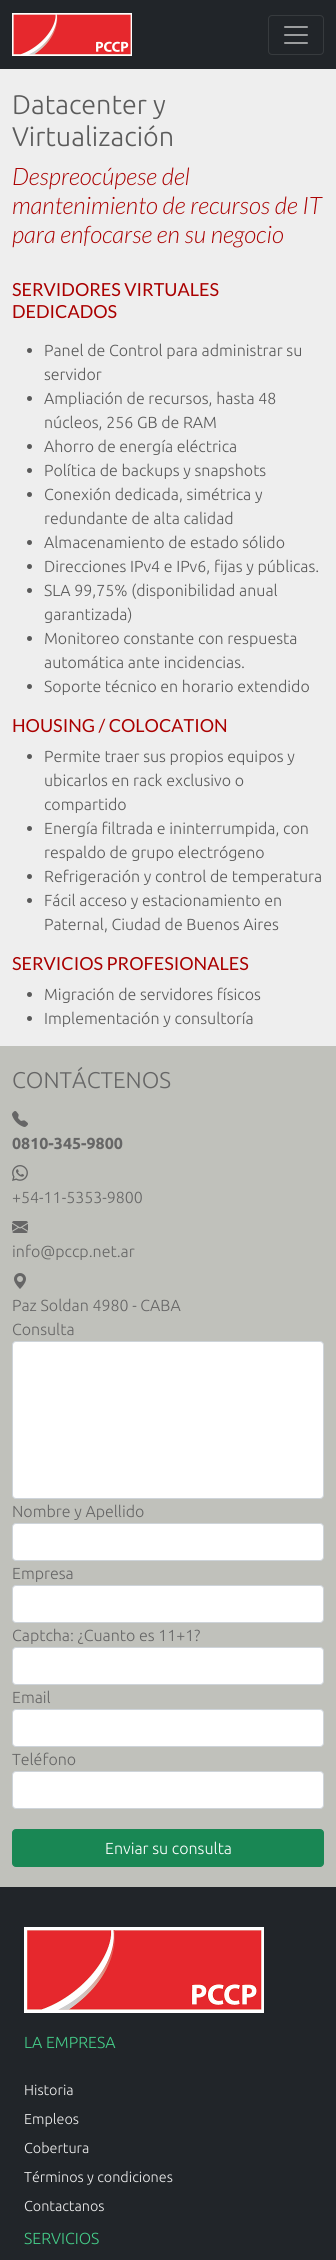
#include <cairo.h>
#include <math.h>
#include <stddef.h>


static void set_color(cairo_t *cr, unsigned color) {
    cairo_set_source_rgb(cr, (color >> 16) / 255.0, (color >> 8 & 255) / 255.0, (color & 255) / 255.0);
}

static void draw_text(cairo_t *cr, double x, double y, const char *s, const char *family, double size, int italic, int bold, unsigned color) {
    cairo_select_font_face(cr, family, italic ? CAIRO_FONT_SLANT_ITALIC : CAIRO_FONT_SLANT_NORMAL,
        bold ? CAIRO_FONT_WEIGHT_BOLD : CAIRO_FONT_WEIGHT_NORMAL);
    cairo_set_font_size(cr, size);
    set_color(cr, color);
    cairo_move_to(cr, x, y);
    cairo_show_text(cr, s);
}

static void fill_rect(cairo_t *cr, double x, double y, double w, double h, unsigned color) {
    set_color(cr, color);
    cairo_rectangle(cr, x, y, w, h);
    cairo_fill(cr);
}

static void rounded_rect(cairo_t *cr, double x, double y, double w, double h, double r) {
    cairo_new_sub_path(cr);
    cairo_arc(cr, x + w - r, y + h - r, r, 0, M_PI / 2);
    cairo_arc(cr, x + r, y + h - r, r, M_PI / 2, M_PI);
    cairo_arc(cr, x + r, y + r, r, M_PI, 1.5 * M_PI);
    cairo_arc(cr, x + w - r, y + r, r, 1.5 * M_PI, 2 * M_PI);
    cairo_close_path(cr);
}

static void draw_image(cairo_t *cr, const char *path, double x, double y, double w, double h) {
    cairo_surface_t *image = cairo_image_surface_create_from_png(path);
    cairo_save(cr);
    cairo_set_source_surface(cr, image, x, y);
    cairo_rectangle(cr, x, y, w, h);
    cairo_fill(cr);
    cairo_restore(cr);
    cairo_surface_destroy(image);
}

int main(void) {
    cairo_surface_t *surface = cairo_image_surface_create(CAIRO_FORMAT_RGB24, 336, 2260);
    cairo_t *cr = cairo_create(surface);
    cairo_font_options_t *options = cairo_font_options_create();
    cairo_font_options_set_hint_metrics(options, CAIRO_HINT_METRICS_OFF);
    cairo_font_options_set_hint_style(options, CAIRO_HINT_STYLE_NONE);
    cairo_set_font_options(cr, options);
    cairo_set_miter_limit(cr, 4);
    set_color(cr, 0xEEEEEE);
    cairo_paint(cr);
    fill_rect(cr, 0, 0, 336, 69, 0x212529);
    draw_image(cr, "assets/img1.png", 12, 13, 120, 43);
    rounded_rect(cr, 268.5, 15.5, 55, 39, 3.5);
    set_color(cr, 0x373B3E);
    cairo_set_line_width(cr, 1);
    cairo_stroke(cr);
    draw_image(cr, "assets/img2.png", 284, 26, 24, 18);
    draw_text(cr, 12, 114, "Datacenter y", "Ubuntu Light", 27, 0, 0, 0x5A5A5A);
    draw_text(cr, 12, 146, "Virtualización", "Ubuntu Light", 27, 0, 0, 0x5A5A5A);
    draw_text(cr, 12, 185, "Despreocúpese del", "Lato Light", 24, 1, 0, 0xAA0000);
    draw_text(cr, 12, 214, "mantenimiento de recursos de IT", "Lato Light", 24, 1, 0, 0xAA0000);
    draw_text(cr, 12, 243, "para enfocarse en su negocio", "Lato Light", 24, 1, 0, 0xAA0000);
    draw_text(cr, 12, 296, "SERVIDORES VIRTUALES", "Lato", 18, 0, 0, 0xAA0000);
    draw_text(cr, 12, 318, "DEDICADOS", "Lato", 18, 0, 0, 0xAA0000);
    set_color(cr, 0x5A5A5A);
    cairo_new_path(cr);
    cairo_arc(cr, 29.5, 350.5, 2.5, 0, 2 * M_PI);
    cairo_fill(cr);
    draw_text(cr, 44, 356, "Panel de Control para administrar su", "Ubuntu Light", 16, 0, 0, 0x5A5A5A);
    draw_text(cr, 44, 380, "servidor", "Ubuntu Light", 16, 0, 0, 0x5A5A5A);
    cairo_new_path(cr);
    cairo_arc(cr, 29.5, 398.5, 2.5, 0, 2 * M_PI);
    cairo_fill(cr);
    draw_text(cr, 44, 404, "Ampliación de recursos, hasta 48", "Ubuntu Light", 16, 0, 0, 0x5A5A5A);
    draw_text(cr, 44, 428, "núcleos, 256 GB de RAM", "Ubuntu Light", 16, 0, 0, 0x5A5A5A);
    cairo_new_path(cr);
    cairo_arc(cr, 29.5, 446.5, 2.5, 0, 2 * M_PI);
    cairo_fill(cr);
    draw_text(cr, 44, 452, "Ahorro de energía eléctrica", "Ubuntu Light", 16, 0, 0, 0x5A5A5A);
    cairo_new_path(cr);
    cairo_arc(cr, 29.5, 470.5, 2.5, 0, 2 * M_PI);
    cairo_fill(cr);
    draw_text(cr, 44, 476, "Política de backups y snapshots", "Ubuntu Light", 16, 0, 0, 0x5A5A5A);
    cairo_new_path(cr);
    cairo_arc(cr, 29.5, 494.5, 2.5, 0, 2 * M_PI);
    cairo_fill(cr);
    draw_text(cr, 44, 500, "Conexión dedicada, simétrica y", "Ubuntu Light", 16, 0, 0, 0x5A5A5A);
    draw_text(cr, 44, 524, "redundante de alta calidad", "Ubuntu Light", 16, 0, 0, 0x5A5A5A);
    cairo_new_path(cr);
    cairo_arc(cr, 29.5, 542.5, 2.5, 0, 2 * M_PI);
    cairo_fill(cr);
    draw_text(cr, 44, 548, "Almacenamiento de estado sólido", "Ubuntu Light", 16, 0, 0, 0x5A5A5A);
    cairo_new_path(cr);
    cairo_arc(cr, 29.5, 566.5, 2.5, 0, 2 * M_PI);
    cairo_fill(cr);
    draw_text(cr, 44, 572, "Direcciones IPv4 e IPv6, fijas y públicas.", "Ubuntu Light", 16, 0, 0, 0x5A5A5A);
    cairo_new_path(cr);
    cairo_arc(cr, 29.5, 590.5, 2.5, 0, 2 * M_PI);
    cairo_fill(cr);
    draw_text(cr, 44, 596, "SLA 99,75% (disponibilidad anual", "Ubuntu Light", 16, 0, 0, 0x5A5A5A);
    draw_text(cr, 44, 620, "garantizada)", "Ubuntu Light", 16, 0, 0, 0x5A5A5A);
    cairo_new_path(cr);
    cairo_arc(cr, 29.5, 638.5, 2.5, 0, 2 * M_PI);
    cairo_fill(cr);
    draw_text(cr, 44, 644, "Monitoreo constante con respuesta", "Ubuntu Light", 16, 0, 0, 0x5A5A5A);
    draw_text(cr, 44, 668, "automática ante incidencias.", "Ubuntu Light", 16, 0, 0, 0x5A5A5A);
    cairo_new_path(cr);
    cairo_arc(cr, 29.5, 686.5, 2.5, 0, 2 * M_PI);
    cairo_fill(cr);
    draw_text(cr, 44, 692, "Soporte técnico en horario extendido", "Ubuntu Light", 16, 0, 0, 0x5A5A5A);
    draw_text(cr, 12, 732, "HOUSING / COLOCATION", "Lato", 18, 0, 0, 0xAA0000);
    set_color(cr, 0x5A5A5A);
    cairo_new_path(cr);
    cairo_arc(cr, 29.5, 756.5, 2.5, 0, 2 * M_PI);
    cairo_fill(cr);
    draw_text(cr, 44, 762, "Permite traer sus propios equipos y", "Ubuntu Light", 16, 0, 0, 0x5A5A5A);
    draw_text(cr, 44, 786, "ubicarlos en rack exclusivo o", "Ubuntu Light", 16, 0, 0, 0x5A5A5A);
    draw_text(cr, 44, 810, "compartido", "Ubuntu Light", 16, 0, 0, 0x5A5A5A);
    cairo_new_path(cr);
    cairo_arc(cr, 29.5, 828.5, 2.5, 0, 2 * M_PI);
    cairo_fill(cr);
    draw_text(cr, 44, 834, "Energía filtrada e ininterrumpida, con", "Ubuntu Light", 16, 0, 0, 0x5A5A5A);
    draw_text(cr, 44, 858, "respaldo de grupo electrógeno", "Ubuntu Light", 16, 0, 0, 0x5A5A5A);
    cairo_new_path(cr);
    cairo_arc(cr, 29.5, 876.5, 2.5, 0, 2 * M_PI);
    cairo_fill(cr);
    draw_text(cr, 44, 882, "Refrigeración y control de temperatura", "Ubuntu Light", 16, 0, 0, 0x5A5A5A);
    cairo_new_path(cr);
    cairo_arc(cr, 29.5, 900.5, 2.5, 0, 2 * M_PI);
    cairo_fill(cr);
    draw_text(cr, 44, 906, "Fácil acceso y estacionamiento en", "Ubuntu Light", 16, 0, 0, 0x5A5A5A);
    draw_text(cr, 44, 930, "Paternal, Ciudad de Buenos Aires", "Ubuntu Light", 16, 0, 0, 0x5A5A5A);
    draw_text(cr, 12, 970, "SERVICIOS PROFESIONALES", "Lato", 18, 0, 0, 0xAA0000);
    set_color(cr, 0x5A5A5A);
    cairo_new_path(cr);
    cairo_arc(cr, 29.5, 994.5, 2.5, 0, 2 * M_PI);
    cairo_fill(cr);
    draw_text(cr, 44, 1000, "Migración de servidores físicos", "Ubuntu Light", 16, 0, 0, 0x5A5A5A);
    cairo_new_path(cr);
    cairo_arc(cr, 29.5, 1018.5, 2.5, 0, 2 * M_PI);
    cairo_fill(cr);
    draw_text(cr, 44, 1024, "Implementación y consultoría", "Ubuntu Light", 16, 0, 0, 0x5A5A5A);
    fill_rect(cr, 0, 1046, 336, 841, 0xC0C1BB);
    draw_text(cr, 12, 1088, "CONTÁCTENOS", "Ubuntu Light", 22.75, 0, 0, 0x666666);
    draw_image(cr, "assets/img3.png", 12, 1111, 16, 16);
    draw_text(cr, 12, 1149, "0810-345-9800", "Ubuntu", 16, 0, 1, 0x666666);
    draw_image(cr, "assets/img4.png", 12, 1165, 16, 16);
    draw_text(cr, 12, 1203, "+54-11-5353-9800", "Ubuntu Light", 16, 0, 0, 0x666666);
    draw_image(cr, "assets/img5.png", 12, 1221, 16, 12);
    draw_text(cr, 12, 1257, "info@pccp.net.ar", "Ubuntu Light", 16, 0, 0, 0x666666);
    draw_image(cr, "assets/img6.png", 14, 1273, 12, 16);
    draw_text(cr, 12, 1311, "Paz Soldan 4980 - CABA", "Ubuntu Light", 16, 0, 0, 0x666666);
    draw_text(cr, 12, 1335, "Consulta", "Ubuntu Light", 16, 0, 0, 0x666666);
    set_color(cr, 0xFFFFFF);
    rounded_rect(cr, 12.5, 1341.5, 311, 157, 3.5);
    cairo_fill_preserve(cr);
    set_color(cr, 0xCED4DA);
    cairo_stroke(cr);
    draw_text(cr, 12, 1517, "Nombre y Apellido", "Ubuntu Light", 16, 0, 0, 0x666666);
    set_color(cr, 0xFFFFFF);
    rounded_rect(cr, 12.5, 1523.5, 311, 37, 3.5);
    cairo_fill_preserve(cr);
    set_color(cr, 0xCED4DA);
    cairo_stroke(cr);
    draw_text(cr, 12, 1579, "Empresa", "Ubuntu Light", 16, 0, 0, 0x666666);
    set_color(cr, 0xFFFFFF);
    rounded_rect(cr, 12.5, 1585.5, 311, 37, 3.5);
    cairo_fill_preserve(cr);
    set_color(cr, 0xCED4DA);
    cairo_stroke(cr);
    draw_text(cr, 12, 1641, "Captcha: ¿Cuanto es 11+1?", "Ubuntu Light", 16, 0, 0, 0x666666);
    set_color(cr, 0xFFFFFF);
    rounded_rect(cr, 12.5, 1647.5, 311, 37, 3.5);
    cairo_fill_preserve(cr);
    set_color(cr, 0xCED4DA);
    cairo_stroke(cr);
    draw_text(cr, 12, 1703, "Email", "Ubuntu Light", 16, 0, 0, 0x666666);
    set_color(cr, 0xFFFFFF);
    rounded_rect(cr, 12.5, 1709.5, 311, 37, 3.5);
    cairo_fill_preserve(cr);
    set_color(cr, 0xCED4DA);
    cairo_stroke(cr);
    draw_text(cr, 12, 1765, "Teléfono", "Ubuntu Light", 16, 0, 0, 0x666666);
    set_color(cr, 0xFFFFFF);
    rounded_rect(cr, 12.5, 1771.5, 311, 37, 3.5);
    cairo_fill_preserve(cr);
    set_color(cr, 0xCED4DA);
    cairo_stroke(cr);
    set_color(cr, 0x198754);
    rounded_rect(cr, 12.5, 1829.5, 311, 37, 3.5);
    cairo_fill_preserve(cr);
    cairo_stroke(cr);
    draw_text(cr, 105, 1854, "Enviar su consulta", "Ubuntu Light", 16, 0, 0, 0xFFFFFF);
    fill_rect(cr, 0, 1887, 336, 373, 0x212529);
    draw_image(cr, "assets/img7.png", 24, 1927, 240, 86);
    draw_text(cr, 24, 2048, "LA EMPRESA", "Ubuntu Light", 16, 0, 0, 0x44CC88);
    draw_text(cr, 24, 2095, "Historia", "Ubuntu Light", 14.4, 0, 0, 0xEEEEEE);
    draw_text(cr, 24, 2124, "Empleos", "Ubuntu Light", 14.4, 0, 0, 0xEEEEEE);
    draw_text(cr, 24, 2153, "Cobertura", "Ubuntu Light", 14.4, 0, 0, 0xEEEEEE);
    draw_text(cr, 24, 2182, "Términos y condiciones", "Ubuntu Light", 14.4, 0, 0, 0xEEEEEE);
    draw_text(cr, 24, 2211, "Contactanos", "Ubuntu Light", 14.4, 0, 0, 0xEEEEEE);
    draw_text(cr, 24, 2244, "SERVICIOS", "Ubuntu Light", 16, 0, 0, 0x44CC88);
    cairo_surface_write_to_png(surface, "output.png");
    cairo_font_options_destroy(options);
    cairo_destroy(cr);
    cairo_surface_destroy(surface);
    return 0;
}
